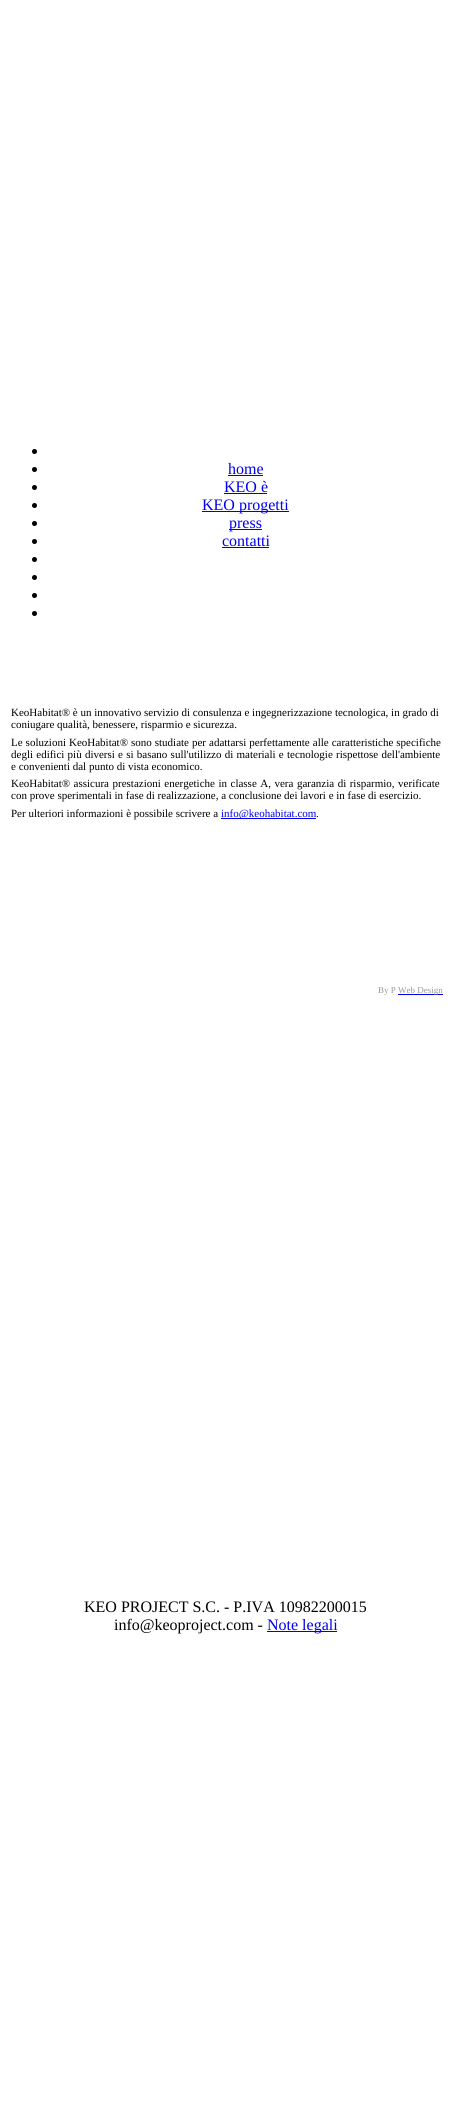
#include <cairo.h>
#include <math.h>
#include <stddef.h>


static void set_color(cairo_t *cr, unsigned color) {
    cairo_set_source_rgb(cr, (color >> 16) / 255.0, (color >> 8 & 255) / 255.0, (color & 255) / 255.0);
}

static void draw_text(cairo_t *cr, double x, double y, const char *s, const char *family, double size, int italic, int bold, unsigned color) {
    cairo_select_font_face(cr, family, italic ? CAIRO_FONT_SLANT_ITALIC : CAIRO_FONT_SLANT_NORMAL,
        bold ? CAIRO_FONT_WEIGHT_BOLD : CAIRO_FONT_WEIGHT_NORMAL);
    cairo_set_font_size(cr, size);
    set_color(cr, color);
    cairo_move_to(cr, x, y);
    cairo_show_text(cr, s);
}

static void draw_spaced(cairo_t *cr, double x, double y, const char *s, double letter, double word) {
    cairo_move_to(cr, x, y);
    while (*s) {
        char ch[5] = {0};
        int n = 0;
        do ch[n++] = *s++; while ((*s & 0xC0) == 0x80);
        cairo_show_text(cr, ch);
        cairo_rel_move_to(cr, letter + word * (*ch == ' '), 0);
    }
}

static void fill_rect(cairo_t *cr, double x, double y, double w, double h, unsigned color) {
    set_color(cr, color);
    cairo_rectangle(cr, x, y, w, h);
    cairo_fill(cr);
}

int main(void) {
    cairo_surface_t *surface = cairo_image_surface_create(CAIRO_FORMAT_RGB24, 451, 2110);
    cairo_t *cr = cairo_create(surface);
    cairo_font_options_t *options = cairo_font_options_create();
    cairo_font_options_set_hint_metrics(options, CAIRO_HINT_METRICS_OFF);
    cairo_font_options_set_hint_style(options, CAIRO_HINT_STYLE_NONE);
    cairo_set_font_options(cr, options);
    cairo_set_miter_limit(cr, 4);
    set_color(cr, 0xFFFFFF);
    cairo_paint(cr);
    set_color(cr, 0x000000);
    cairo_arc(cr, 34.5, 451.5, 2.5, 0, 2 * M_PI);
    cairo_fill(cr);
    cairo_arc(cr, 34.5, 469.5, 2.5, 0, 2 * M_PI);
    cairo_fill(cr);
    draw_text(cr, 228, 474, "home", "Liberation Serif", 16, 0, 0, 0x0000EE);
    fill_rect(cr, 228, 475, 35, 1, 0x0000EE);
    set_color(cr, 0x000000);
    cairo_new_path(cr);
    cairo_arc(cr, 34.5, 487.5, 2.5, 0, 2 * M_PI);
    cairo_fill(cr);
    draw_text(cr, 224, 492, "KEO è", "Liberation Serif", 16, 0, 0, 0x0000EE);
    fill_rect(cr, 224, 493, 43, 1, 0x0000EE);
    set_color(cr, 0x000000);
    cairo_new_path(cr);
    cairo_arc(cr, 34.5, 505.5, 2.5, 0, 2 * M_PI);
    cairo_fill(cr);
    fill_rect(cr, 202, 511, 87, 1, 0x0000EE);
    draw_text(cr, 202, 510, "KEO progetti", "Liberation Serif", 16, 0, 0, 0x0000EE);
    set_color(cr, 0x000000);
    cairo_new_path(cr);
    cairo_arc(cr, 34.5, 523.5, 2.5, 0, 2 * M_PI);
    cairo_fill(cr);
    fill_rect(cr, 229, 529, 33, 1, 0x0000EE);
    draw_text(cr, 229, 528, "press", "Liberation Serif", 16, 0, 0, 0x0000EE);
    set_color(cr, 0x000000);
    cairo_new_path(cr);
    cairo_arc(cr, 34.5, 541.5, 2.5, 0, 2 * M_PI);
    cairo_fill(cr);
    draw_text(cr, 222, 546, "contatti", "Liberation Serif", 16, 0, 0, 0x0000EE);
    fill_rect(cr, 222, 547, 47, 1, 0x0000EE);
    set_color(cr, 0x000000);
    cairo_new_path(cr);
    cairo_arc(cr, 34.5, 559.5, 2.5, 0, 2 * M_PI);
    cairo_fill(cr);
    cairo_arc(cr, 34.5, 577.5, 2.5, 0, 2 * M_PI);
    cairo_fill(cr);
    cairo_arc(cr, 34.5, 595.5, 2.5, 0, 2 * M_PI);
    cairo_fill(cr);
    cairo_arc(cr, 34.5, 613.5, 2.5, 0, 2 * M_PI);
    cairo_fill(cr);
    draw_text(cr, 11, 716, "KeoHabitat® è un innovativo servizio di consulenza e ingegnerizzazione tecnologica, in grado di", "Liberation Serif", 11, 0, 0, 0x000000);
    draw_text(cr, 11, 728, "coniugare qualità, benessere, risparmio e sicurezza.", "Liberation Serif", 11, 0, 0, 0x000000);
    draw_spaced(cr, 11, 746, "Le soluzioni KeoHabitat® sono studiate per adattarsi perfettamente alle caratteristiche specifiche", 0, 0.25);
    draw_spaced(cr, 11, 758, "degli edifici più diversi e si basano sull'utilizzo di materiali e tecnologie rispettose dell'ambiente", 0, 0.5);
    draw_text(cr, 11, 770, "e convenienti dal punto di vista economico.", "Liberation Serif", 11, 0, 0, 0x000000);
    draw_spaced(cr, 11, 787, "KeoHabitat® assicura prestazioni energetiche in classe A, vera garanzia di risparmio, verificate", 0, 0.75);
    draw_text(cr, 11, 799, "con prove sperimentali in fase di realizzazione, a conclusione dei lavori e in fase di esercizio.", "Liberation Serif", 11, 0, 0, 0x000000);
    draw_text(cr, 11, 817, "Per ulteriori informazioni è possibile scrivere a", "Liberation Serif", 11, 0, 0, 0x000000);
    fill_rect(cr, 221, 818, 95, 1, 0x0000EE);
    draw_text(cr, 221, 817, "info@keohabitat.com", "Liberation Serif", 11, 0, 0, 0x0000EE);
    draw_text(cr, 316, 817, ".", "Liberation Serif", 11, 0, 0, 0x000000);
    draw_text(cr, 378, 993, "By P", "Liberation Serif", 9, 0, 0, 0x999999);
    fill_rect(cr, 398, 994, 45, 1, 0x0000EE);
    draw_text(cr, 398, 993, "Web Design", "Liberation Serif", 9, 0, 0, 0x999999);
    draw_text(cr, 84, 1612, "KEO PROJECT S.C. - P.IVA 10982200015", "Liberation Serif", 16, 0, 0, 0x000000);
    draw_text(cr, 114, 1630, "info@keoproject.com -", "Liberation Serif", 16, 0, 0, 0x000000);
    fill_rect(cr, 267, 1631, 70, 1, 0x0000EE);
    draw_text(cr, 267, 1630, "Note legali", "Liberation Serif", 16, 0, 0, 0x0000EE);
    cairo_surface_write_to_png(surface, "output.png");
    cairo_font_options_destroy(options);
    cairo_destroy(cr);
    cairo_surface_destroy(surface);
    return 0;
}
